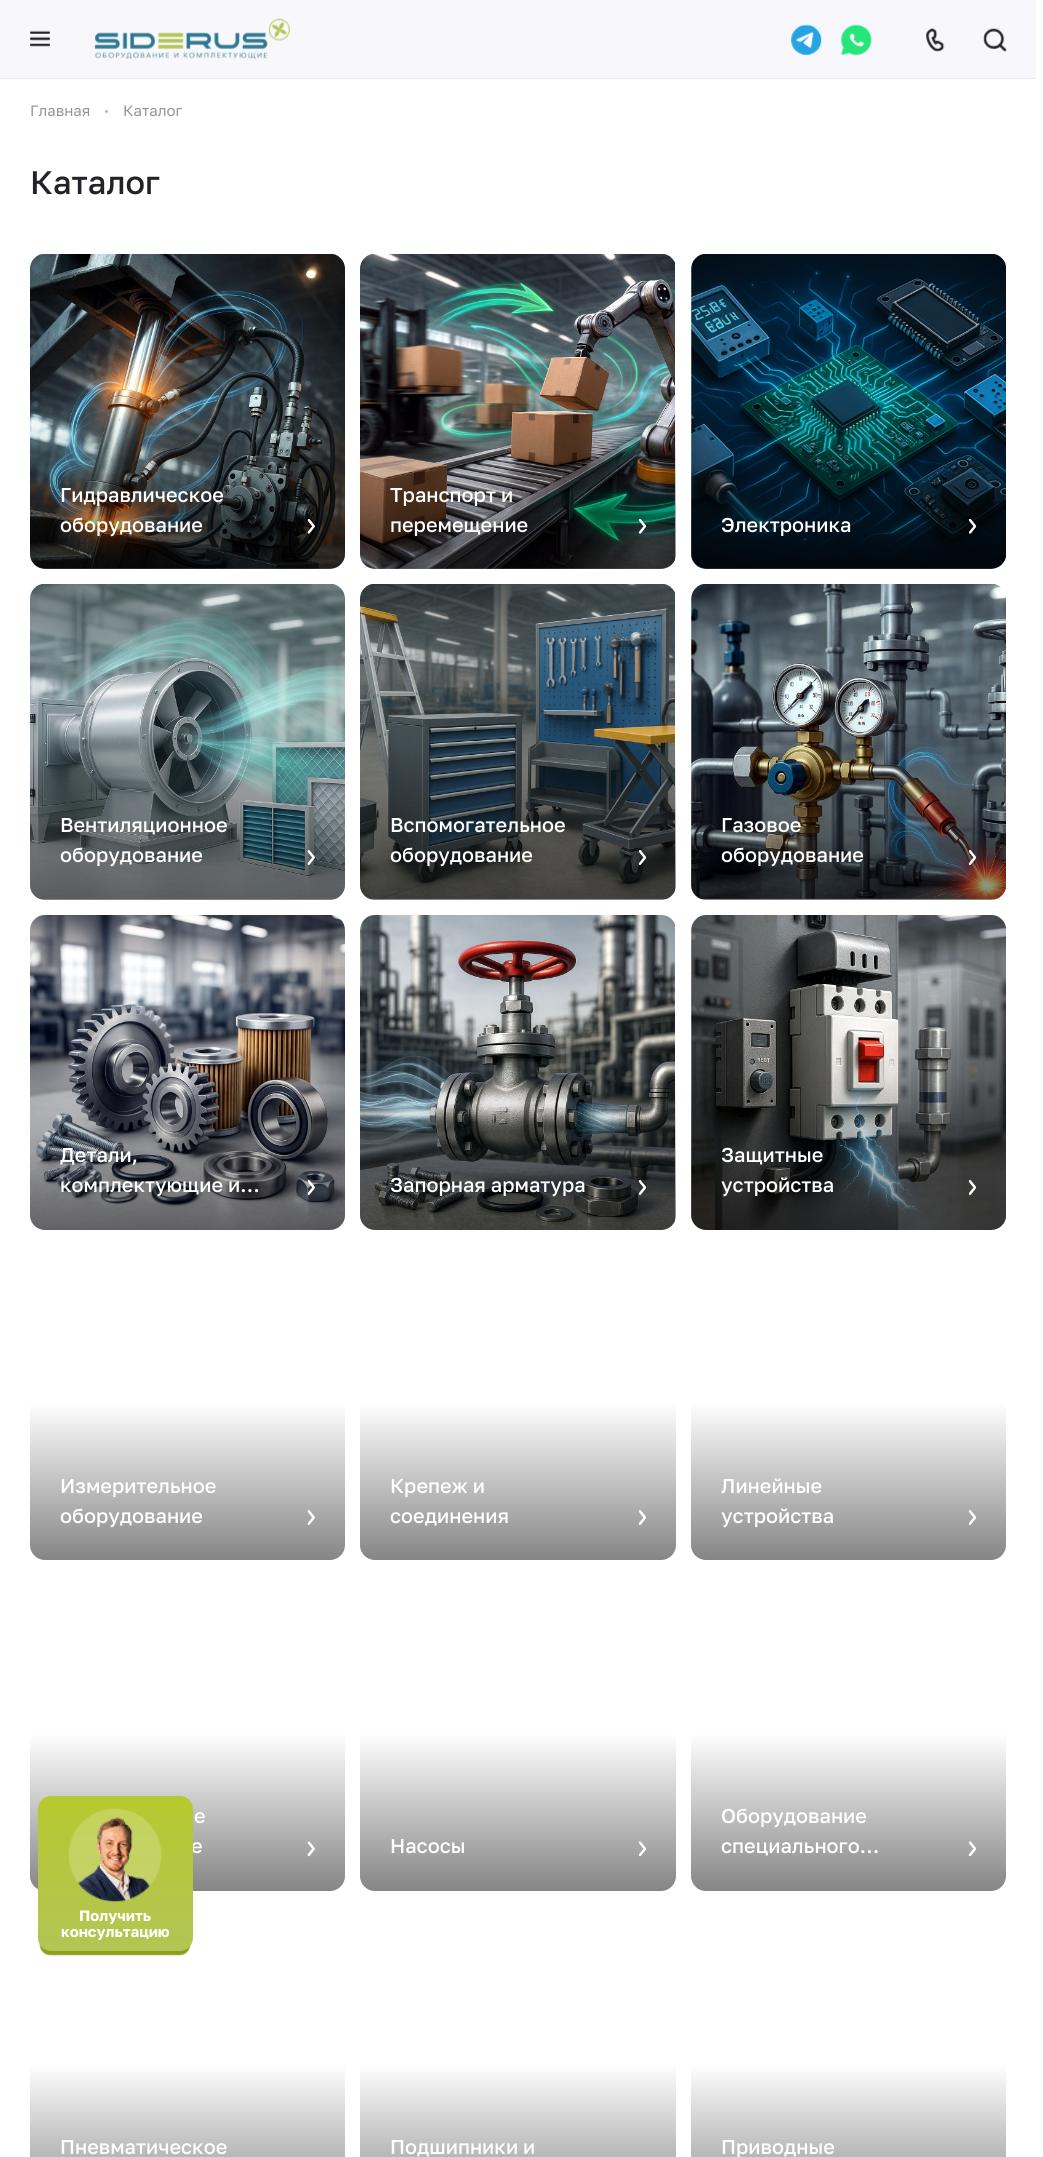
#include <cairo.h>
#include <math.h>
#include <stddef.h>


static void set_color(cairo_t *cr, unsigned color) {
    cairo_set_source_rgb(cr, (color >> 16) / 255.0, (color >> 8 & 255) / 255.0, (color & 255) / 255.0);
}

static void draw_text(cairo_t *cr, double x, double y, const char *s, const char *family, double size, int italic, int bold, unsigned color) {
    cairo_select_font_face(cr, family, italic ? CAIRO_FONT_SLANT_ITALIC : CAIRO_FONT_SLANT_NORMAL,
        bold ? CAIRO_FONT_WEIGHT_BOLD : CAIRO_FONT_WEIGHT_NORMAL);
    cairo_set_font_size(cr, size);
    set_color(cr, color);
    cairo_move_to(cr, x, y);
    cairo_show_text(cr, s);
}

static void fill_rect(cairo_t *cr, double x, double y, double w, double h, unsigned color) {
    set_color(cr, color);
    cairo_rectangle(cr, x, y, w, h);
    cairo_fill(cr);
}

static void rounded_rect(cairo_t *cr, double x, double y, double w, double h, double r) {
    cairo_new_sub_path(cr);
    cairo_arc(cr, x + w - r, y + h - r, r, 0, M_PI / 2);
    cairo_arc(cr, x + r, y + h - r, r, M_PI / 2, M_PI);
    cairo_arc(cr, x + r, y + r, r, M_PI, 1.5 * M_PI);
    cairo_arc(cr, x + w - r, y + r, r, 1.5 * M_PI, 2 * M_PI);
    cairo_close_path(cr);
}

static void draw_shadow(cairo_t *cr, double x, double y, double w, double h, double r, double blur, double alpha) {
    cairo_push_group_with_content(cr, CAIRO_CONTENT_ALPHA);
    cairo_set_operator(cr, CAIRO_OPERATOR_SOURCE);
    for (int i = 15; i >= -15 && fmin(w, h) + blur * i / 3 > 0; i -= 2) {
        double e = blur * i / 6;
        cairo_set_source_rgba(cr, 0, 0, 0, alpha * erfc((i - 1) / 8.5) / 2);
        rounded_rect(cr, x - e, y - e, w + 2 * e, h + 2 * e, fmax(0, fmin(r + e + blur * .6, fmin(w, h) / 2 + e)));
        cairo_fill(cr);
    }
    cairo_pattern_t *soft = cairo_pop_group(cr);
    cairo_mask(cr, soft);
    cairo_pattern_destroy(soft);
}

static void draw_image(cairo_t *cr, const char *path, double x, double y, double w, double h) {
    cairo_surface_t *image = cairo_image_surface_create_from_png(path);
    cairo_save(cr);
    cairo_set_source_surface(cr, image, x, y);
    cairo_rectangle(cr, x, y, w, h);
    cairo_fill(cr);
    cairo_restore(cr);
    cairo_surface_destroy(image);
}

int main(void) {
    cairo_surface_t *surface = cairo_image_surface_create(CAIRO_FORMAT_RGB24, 1043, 2157);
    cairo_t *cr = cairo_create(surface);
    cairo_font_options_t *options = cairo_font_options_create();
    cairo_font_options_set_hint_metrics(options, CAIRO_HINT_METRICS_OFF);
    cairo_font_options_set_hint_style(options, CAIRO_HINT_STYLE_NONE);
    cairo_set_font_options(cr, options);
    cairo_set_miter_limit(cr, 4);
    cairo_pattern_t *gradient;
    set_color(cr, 0xFFFFFF);
    cairo_paint(cr);
    fill_rect(cr, 0, 78, 1036, 1, 0xEBECEF);
    fill_rect(cr, 0, 0, 1036, 78, 0xF8F8FC);
    draw_image(cr, "assets/img1.png", 30, 30, 20, 17);
    draw_image(cr, "assets/img2.png", 95, 18, 195, 41);
    draw_image(cr, "assets/img3.png", 791, 24, 31, 31);
    draw_image(cr, "assets/img4.png", 841, 24, 31, 31);
    draw_image(cr, "assets/img5.png", 926, 28, 19, 24);
    draw_image(cr, "assets/img6.png", 983, 28, 24, 24);
    draw_text(cr, 30, 116, "Главная", "Golos Text", 15, 0, 0, 0x959598);
    set_color(cr, 0xB8B8B9);
    cairo_new_path(cr);
    cairo_arc(cr, 106.5, 111.5, 1.5, 0, 2 * M_PI);
    cairo_fill(cr);
    draw_text(cr, 123, 116, "Каталог", "Golos Text", 15, 0, 0, 0x959598);
    draw_text(cr, 30, 194, "Каталог", "Golos Text Medium", 32.5, 0, 0, 0x222228);
    draw_image(cr, "assets/img7.png", 30, 254, 315, 315);
    gradient = cairo_pattern_create_linear(188, 569, 188, 254);
    cairo_pattern_add_color_stop_rgba(gradient, 0, 0, 0, 0, 0.48);
    cairo_pattern_add_color_stop_rgba(gradient, 0.5, 0, 0, 0, 0);
    cairo_set_source(cr, gradient);
    cairo_pattern_destroy(gradient);
    rounded_rect(cr, 30, 254, 315, 315, 15);
    cairo_fill(cr);
    draw_text(cr, 60, 502, "Гидравлическое", "Golos Text Medium", 20, 0, 0, 0xFFFFFF);
    draw_text(cr, 60, 532, "оборудование", "Golos Text Medium", 20, 0, 0, 0xFFFFFF);
    draw_image(cr, "assets/img8.png", 307, 518, 8, 16);
    draw_image(cr, "assets/img9.png", 360, 254, 315, 315);
    gradient = cairo_pattern_create_linear(518, 569, 518, 254);
    cairo_pattern_add_color_stop_rgba(gradient, 0, 0, 0, 0, 0.48);
    cairo_pattern_add_color_stop_rgba(gradient, 0.5, 0, 0, 0, 0);
    cairo_set_source(cr, gradient);
    cairo_pattern_destroy(gradient);
    rounded_rect(cr, 360, 254, 316, 315, 15);
    cairo_fill(cr);
    draw_text(cr, 390, 502, "Транспорт и", "Golos Text Medium", 20, 0, 0, 0xFFFFFF);
    draw_text(cr, 390, 532, "перемещение", "Golos Text Medium", 20, 0, 0, 0xFFFFFF);
    draw_image(cr, "assets/img10.png", 638, 519, 9, 15);
    draw_image(cr, "assets/img11.png", 691, 254, 315, 315);
    gradient = cairo_pattern_create_linear(849, 569, 849, 254);
    cairo_pattern_add_color_stop_rgba(gradient, 0, 0, 0, 0, 0.48);
    cairo_pattern_add_color_stop_rgba(gradient, 0.5, 0, 0, 0, 0);
    cairo_set_source(cr, gradient);
    cairo_pattern_destroy(gradient);
    rounded_rect(cr, 691, 254, 315, 315, 15);
    cairo_fill(cr);
    draw_text(cr, 721, 532, "Электроника", "Golos Text Medium", 20, 0, 0, 0xFFFFFF);
    draw_image(cr, "assets/img12.png", 968, 519, 9, 15);
    draw_image(cr, "assets/img13.png", 30, 584, 315, 315);
    gradient = cairo_pattern_create_linear(188, 900, 188, 584);
    cairo_pattern_add_color_stop_rgba(gradient, 0, 0, 0, 0, 0.48);
    cairo_pattern_add_color_stop_rgba(gradient, 0.5, 0, 0, 0, 0);
    cairo_set_source(cr, gradient);
    cairo_pattern_destroy(gradient);
    rounded_rect(cr, 30, 584, 315, 316, 15);
    cairo_fill(cr);
    draw_text(cr, 60, 832, "Вентиляционное", "Golos Text Medium", 20, 0, 0, 0xFFFFFF);
    draw_text(cr, 60, 862, "оборудование", "Golos Text Medium", 20, 0, 0, 0xFFFFFF);
    draw_image(cr, "assets/img14.png", 307, 850, 8, 15);
    draw_image(cr, "assets/img15.png", 360, 584, 315, 315);
    gradient = cairo_pattern_create_linear(518, 900, 518, 584);
    cairo_pattern_add_color_stop_rgba(gradient, 0, 0, 0, 0, 0.48);
    cairo_pattern_add_color_stop_rgba(gradient, 0.5, 0, 0, 0, 0);
    cairo_set_source(cr, gradient);
    cairo_pattern_destroy(gradient);
    rounded_rect(cr, 360, 584, 316, 316, 15);
    cairo_fill(cr);
    draw_text(cr, 390, 832, "Вспомогательное", "Golos Text Medium", 20, 0, 0, 0xFFFFFF);
    draw_text(cr, 390, 862, "оборудование", "Golos Text Medium", 20, 0, 0, 0xFFFFFF);
    draw_image(cr, "assets/img16.png", 638, 850, 9, 15);
    draw_image(cr, "assets/img17.png", 691, 584, 315, 315);
    gradient = cairo_pattern_create_linear(849, 900, 849, 584);
    cairo_pattern_add_color_stop_rgba(gradient, 0, 0, 0, 0, 0.48);
    cairo_pattern_add_color_stop_rgba(gradient, 0.5, 0, 0, 0, 0);
    cairo_set_source(cr, gradient);
    cairo_pattern_destroy(gradient);
    rounded_rect(cr, 691, 584, 315, 316, 15);
    cairo_fill(cr);
    draw_text(cr, 721, 832, "Газовое", "Golos Text Medium", 20, 0, 0, 0xFFFFFF);
    draw_text(cr, 721, 862, "оборудование", "Golos Text Medium", 20, 0, 0, 0xFFFFFF);
    draw_image(cr, "assets/img18.png", 968, 850, 9, 15);
    draw_image(cr, "assets/img19.png", 30, 915, 315, 315);
    gradient = cairo_pattern_create_linear(188, 1230, 188, 915);
    cairo_pattern_add_color_stop_rgba(gradient, 0, 0, 0, 0, 0.48);
    cairo_pattern_add_color_stop_rgba(gradient, 0.5, 0, 0, 0, 0);
    cairo_set_source(cr, gradient);
    cairo_pattern_destroy(gradient);
    rounded_rect(cr, 30, 915, 315, 315, 15);
    cairo_fill(cr);
    draw_text(cr, 60, 1162, "Детали,", "Golos Text Medium", 20, 0, 0, 0xFFFFFF);
    draw_text(cr, 60, 1192, "комплектующие и…", "Golos Text Medium", 20, 0, 0, 0xFFFFFF);
    draw_image(cr, "assets/img20.png", 307, 1180, 8, 15);
    draw_image(cr, "assets/img21.png", 360, 915, 315, 315);
    gradient = cairo_pattern_create_linear(518, 1230, 518, 915);
    cairo_pattern_add_color_stop_rgba(gradient, 0, 0, 0, 0, 0.48);
    cairo_pattern_add_color_stop_rgba(gradient, 0.5, 0, 0, 0, 0);
    cairo_set_source(cr, gradient);
    cairo_pattern_destroy(gradient);
    rounded_rect(cr, 360, 915, 316, 315, 15);
    cairo_fill(cr);
    draw_text(cr, 390, 1192, "Запорная арматура", "Golos Text Medium", 20, 0, 0, 0xFFFFFF);
    draw_image(cr, "assets/img22.png", 638, 1180, 9, 15);
    draw_image(cr, "assets/img23.png", 691, 915, 315, 315);
    gradient = cairo_pattern_create_linear(849, 1230, 849, 915);
    cairo_pattern_add_color_stop_rgba(gradient, 0, 0, 0, 0, 0.48);
    cairo_pattern_add_color_stop_rgba(gradient, 0.5, 0, 0, 0, 0);
    cairo_set_source(cr, gradient);
    cairo_pattern_destroy(gradient);
    rounded_rect(cr, 691, 915, 315, 315, 15);
    cairo_fill(cr);
    draw_text(cr, 721, 1162, "Защитные", "Golos Text Medium", 20, 0, 0, 0xFFFFFF);
    draw_text(cr, 721, 1192, "устройства", "Golos Text Medium", 20, 0, 0, 0xFFFFFF);
    draw_image(cr, "assets/img24.png", 968, 1180, 9, 15);
    gradient = cairo_pattern_create_linear(188, 1560, 188, 1245);
    cairo_pattern_add_color_stop_rgba(gradient, 0, 0.522, 0.522, 0.522, 1);
    cairo_pattern_add_color_stop_rgba(gradient, 0.5, 1, 1, 1, 1);
    cairo_set_source(cr, gradient);
    cairo_pattern_destroy(gradient);
    rounded_rect(cr, 30, 1245, 315, 315, 15);
    cairo_fill(cr);
    draw_text(cr, 60, 1493, "Измерительное", "Golos Text Medium", 20, 0, 0, 0xFFFFFF);
    draw_text(cr, 60, 1523, "оборудование", "Golos Text Medium", 20, 0, 0, 0xFFFFFF);
    draw_image(cr, "assets/img25.png", 307, 1510, 8, 15);
    gradient = cairo_pattern_create_linear(518, 1560, 518, 1245);
    cairo_pattern_add_color_stop_rgba(gradient, 0, 0.522, 0.522, 0.522, 1);
    cairo_pattern_add_color_stop_rgba(gradient, 0.5, 1, 1, 1, 1);
    cairo_set_source(cr, gradient);
    cairo_pattern_destroy(gradient);
    rounded_rect(cr, 360, 1245, 316, 315, 15);
    cairo_fill(cr);
    draw_text(cr, 390, 1493, "Крепеж и", "Golos Text Medium", 20, 0, 0, 0xFFFFFF);
    draw_text(cr, 390, 1523, "соединения", "Golos Text Medium", 20, 0, 0, 0xFFFFFF);
    draw_image(cr, "assets/img26.png", 638, 1510, 9, 15);
    gradient = cairo_pattern_create_linear(849, 1560, 849, 1245);
    cairo_pattern_add_color_stop_rgba(gradient, 0, 0.522, 0.522, 0.522, 1);
    cairo_pattern_add_color_stop_rgba(gradient, 0.5, 1, 1, 1, 1);
    cairo_set_source(cr, gradient);
    cairo_pattern_destroy(gradient);
    rounded_rect(cr, 691, 1245, 315, 315, 15);
    cairo_fill(cr);
    draw_text(cr, 721, 1493, "Линейные", "Golos Text Medium", 20, 0, 0, 0xFFFFFF);
    draw_text(cr, 721, 1523, "устройства", "Golos Text Medium", 20, 0, 0, 0xFFFFFF);
    draw_image(cr, "assets/img26.png", 968, 1510, 9, 15);
    gradient = cairo_pattern_create_linear(188, 1891, 188, 1575);
    cairo_pattern_add_color_stop_rgba(gradient, 0, 0.522, 0.522, 0.522, 1);
    cairo_pattern_add_color_stop_rgba(gradient, 0.5, 1, 1, 1, 1);
    cairo_set_source(cr, gradient);
    cairo_pattern_destroy(gradient);
    rounded_rect(cr, 30, 1575, 315, 316, 15);
    cairo_fill(cr);
    draw_text(cr, 194, 1823, "е", "Golos Text Medium", 20, 0, 0, 0xFFFFFF);
    draw_text(cr, 191, 1853, "е", "Golos Text Medium", 20, 0, 0, 0xFFFFFF);
    draw_image(cr, "assets/img27.png", 307, 1841, 8, 16);
    gradient = cairo_pattern_create_linear(518, 1891, 518, 1575);
    cairo_pattern_add_color_stop_rgba(gradient, 0, 0.522, 0.522, 0.522, 1);
    cairo_pattern_add_color_stop_rgba(gradient, 0.5, 1, 1, 1, 1);
    cairo_set_source(cr, gradient);
    cairo_pattern_destroy(gradient);
    rounded_rect(cr, 360, 1575, 316, 316, 15);
    cairo_fill(cr);
    draw_text(cr, 390, 1853, "Насосы", "Golos Text Medium", 20, 0, 0, 0xFFFFFF);
    draw_image(cr, "assets/img28.png", 638, 1841, 8, 15);
    gradient = cairo_pattern_create_linear(849, 1891, 849, 1575);
    cairo_pattern_add_color_stop_rgba(gradient, 0, 0.522, 0.522, 0.522, 1);
    cairo_pattern_add_color_stop_rgba(gradient, 0.5, 1, 1, 1, 1);
    cairo_set_source(cr, gradient);
    cairo_pattern_destroy(gradient);
    rounded_rect(cr, 691, 1575, 315, 316, 15);
    cairo_fill(cr);
    draw_text(cr, 721, 1823, "Оборудование", "Golos Text Medium", 20, 0, 0, 0xFFFFFF);
    draw_text(cr, 721, 1853, "специального…", "Golos Text Medium", 20, 0, 0, 0xFFFFFF);
    draw_image(cr, "assets/img28.png", 968, 1841, 8, 15);
    gradient = cairo_pattern_create_linear(188, 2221, 188, 1906);
    cairo_pattern_add_color_stop_rgba(gradient, 0, 0.522, 0.522, 0.522, 1);
    cairo_pattern_add_color_stop_rgba(gradient, 0.5, 1, 1, 1, 1);
    cairo_set_source(cr, gradient);
    cairo_pattern_destroy(gradient);
    rounded_rect(cr, 30, 1906, 315, 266, 15);
    cairo_fill(cr);
    draw_text(cr, 60, 2154, "Пневматическое", "Golos Text Medium", 20, 0, 0, 0xFFFFFF);
    gradient = cairo_pattern_create_linear(518, 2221, 518, 1906);
    cairo_pattern_add_color_stop_rgba(gradient, 0, 0.522, 0.522, 0.522, 1);
    cairo_pattern_add_color_stop_rgba(gradient, 0.5, 1, 1, 1, 1);
    cairo_set_source(cr, gradient);
    cairo_pattern_destroy(gradient);
    rounded_rect(cr, 360, 1906, 316, 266, 15);
    cairo_fill(cr);
    draw_text(cr, 390, 2154, "Подшипники и", "Golos Text Medium", 20, 0, 0, 0xFFFFFF);
    gradient = cairo_pattern_create_linear(849, 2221, 849, 1906);
    cairo_pattern_add_color_stop_rgba(gradient, 0, 0.522, 0.522, 0.522, 1);
    cairo_pattern_add_color_stop_rgba(gradient, 0.5, 1, 1, 1, 1);
    cairo_set_source(cr, gradient);
    cairo_pattern_destroy(gradient);
    rounded_rect(cr, 691, 1906, 315, 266, 15);
    cairo_fill(cr);
    draw_text(cr, 721, 2154, "Приводные", "Golos Text Medium", 20, 0, 0, 0xFFFFFF);
    set_color(cr, 0x8F9E20);
    draw_shadow(cr, 40, 1805, 150, 150, 10, 0.5, 1);
    gradient = cairo_pattern_create_linear(115, 1796, 115, 1951);
    cairo_pattern_add_color_stop_rgba(gradient, 0, 0.714, 0.788, 0.184, 1);
    cairo_pattern_add_color_stop_rgba(gradient, 1, 0.702, 0.773, 0.329, 1);
    cairo_set_source(cr, gradient);
    cairo_pattern_destroy(gradient);
    rounded_rect(cr, 38, 1796, 155, 155, 13);
    cairo_fill(cr);
    draw_image(cr, "assets/img29.png", 68, 1808, 94, 94);
    draw_text(cr, 79, 1921, "Получить", "Golos Text", 15, 0, 1, 0xFFFFFF);
    draw_text(cr, 61, 1937, "консультацию", "Golos Text", 15, 0, 1, 0xFFFFFF);
    cairo_surface_write_to_png(surface, "output.png");
    cairo_font_options_destroy(options);
    cairo_destroy(cr);
    cairo_surface_destroy(surface);
    return 0;
}
